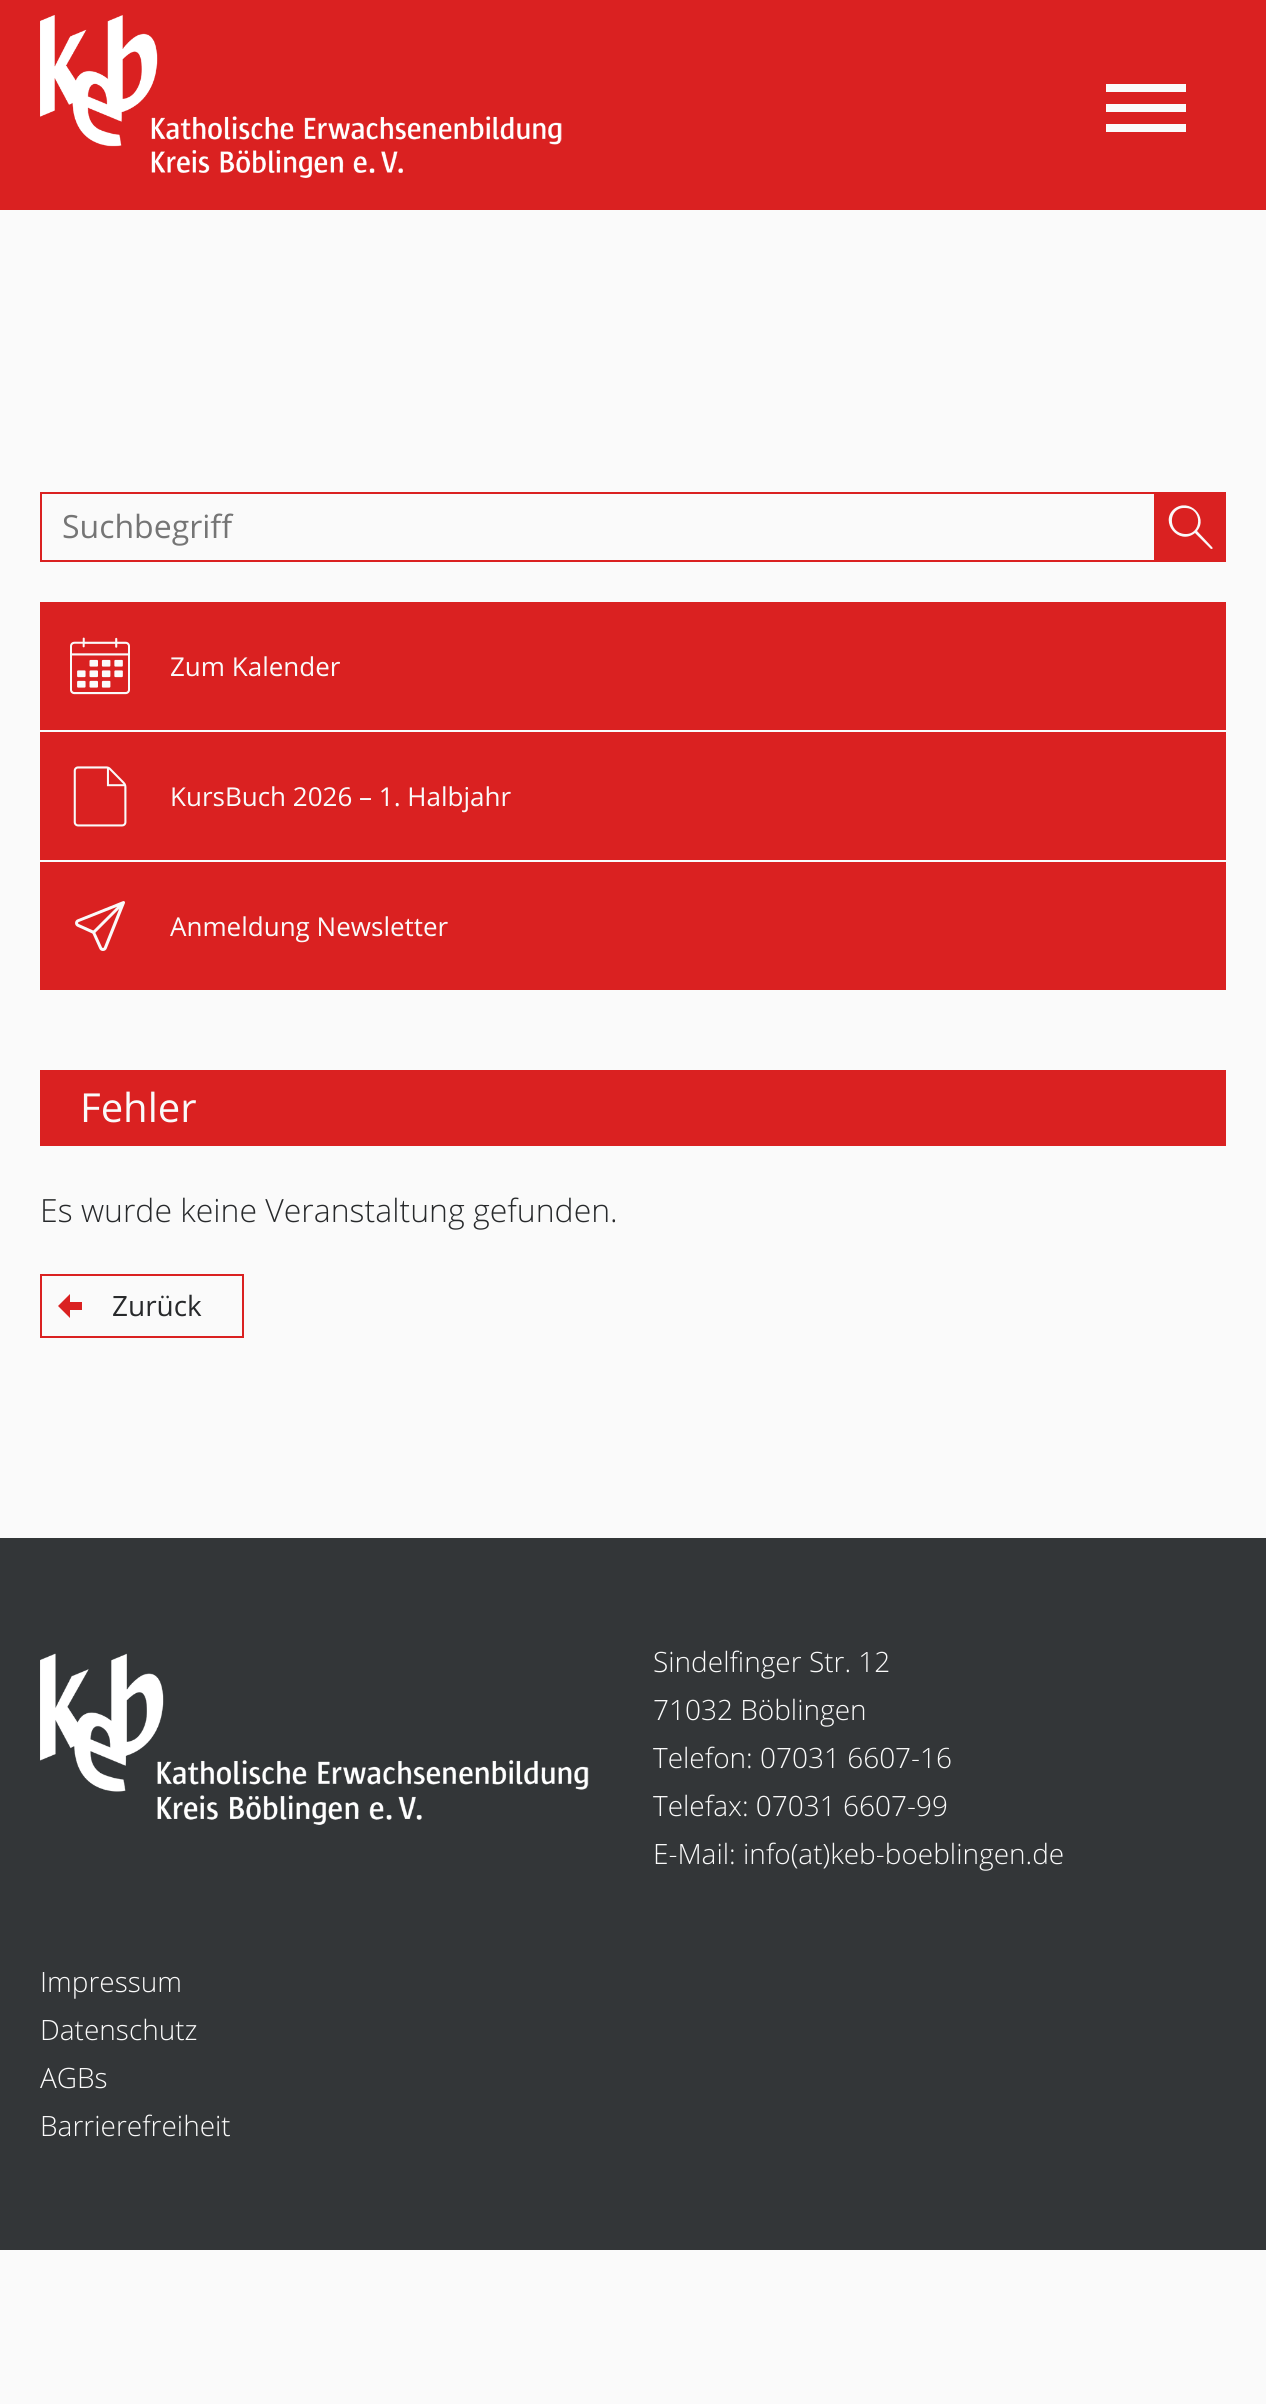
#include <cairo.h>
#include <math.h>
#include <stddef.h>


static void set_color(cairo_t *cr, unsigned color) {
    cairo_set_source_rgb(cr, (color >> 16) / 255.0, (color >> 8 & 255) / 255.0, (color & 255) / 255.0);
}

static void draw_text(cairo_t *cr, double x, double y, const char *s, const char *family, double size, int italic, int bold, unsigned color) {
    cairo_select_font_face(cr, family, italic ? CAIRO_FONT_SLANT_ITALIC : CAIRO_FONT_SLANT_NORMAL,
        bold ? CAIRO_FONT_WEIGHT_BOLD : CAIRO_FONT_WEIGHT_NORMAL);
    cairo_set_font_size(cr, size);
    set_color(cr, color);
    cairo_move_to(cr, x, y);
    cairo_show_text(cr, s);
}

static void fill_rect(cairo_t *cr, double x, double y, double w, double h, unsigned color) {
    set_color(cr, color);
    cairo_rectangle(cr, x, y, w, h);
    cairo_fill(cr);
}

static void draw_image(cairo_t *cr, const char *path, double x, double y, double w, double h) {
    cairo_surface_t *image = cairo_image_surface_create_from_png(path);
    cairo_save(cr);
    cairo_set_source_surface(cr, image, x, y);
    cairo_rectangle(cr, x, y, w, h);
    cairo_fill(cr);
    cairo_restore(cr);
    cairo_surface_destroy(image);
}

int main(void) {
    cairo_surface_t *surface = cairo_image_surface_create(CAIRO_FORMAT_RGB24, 1266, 2404);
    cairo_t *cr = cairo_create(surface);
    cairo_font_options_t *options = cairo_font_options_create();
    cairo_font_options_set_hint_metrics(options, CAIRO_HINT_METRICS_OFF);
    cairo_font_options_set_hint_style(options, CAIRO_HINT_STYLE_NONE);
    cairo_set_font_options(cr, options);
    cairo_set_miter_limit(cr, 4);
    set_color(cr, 0xFAFAFA);
    cairo_paint(cr);
    fill_rect(cr, 0, 0, 1266, 210, 0xDA2121);
    draw_image(cr, "assets/img1.png", 40, 15, 522, 163);
    fill_rect(cr, 1106, 84, 80, 8, 0xFAFAFA);
    fill_rect(cr, 1106, 104, 80, 8, 0xFAFAFA);
    fill_rect(cr, 1106, 124, 80, 8, 0xFAFAFA);
    cairo_rectangle(cr, 41, 493, 1114, 68);
    set_color(cr, 0xDA2121);
    cairo_stroke(cr);
    draw_text(cr, 62, 538, "Suchbegriff", "Open Sans", 32, 0, 0, 0x757575);
    fill_rect(cr, 1156, 492, 70, 70, 0xDA2121);
    set_color(cr, 0xFAFAFA);
    cairo_new_path(cr);
    cairo_move_to(cr, 1212, 547);
    cairo_line_to(cr, 1197, 531);
    cairo_curve_to(cr, 1209, 517, 1189, 497, 1174, 509);
    cairo_curve_to(cr, 1159, 522, 1179, 546, 1195, 533);
    cairo_line_to(cr, 1211, 549);
    cairo_curve_to(cr, 1213, 549, 1213, 548, 1212, 547);
    cairo_close_path(cr);
    cairo_move_to(cr, 1185, 534);
    cairo_curve_to(cr, 1167, 533, 1168, 507, 1185, 508);
    cairo_curve_to(cr, 1203, 508, 1202, 535, 1185, 534);
    cairo_close_path(cr);
    cairo_fill(cr);
    fill_rect(cr, 40, 602, 1186, 128, 0xDA2121);
    draw_image(cr, "assets/img2.png", 70, 637, 60, 58);
    draw_text(cr, 170, 676, "Zum Kalender", "Open Sans", 26, 0, 0, 0xFAFAFA);
    fill_rect(cr, 40, 732, 1186, 128, 0xDA2121);
    draw_image(cr, "assets/img3.png", 73, 766, 54, 61);
    draw_text(cr, 170, 806, "KursBuch 2026 – 1. Halbjahr", "Open Sans", 26, 0, 0, 0xFAFAFA);
    fill_rect(cr, 40, 862, 1186, 128, 0xDA2121);
    draw_image(cr, "assets/img4.png", 75, 901, 50, 50);
    draw_text(cr, 170, 936, "Anmeldung Newsletter", "Open Sans", 26, 0, 0, 0xFAFAFA);
    fill_rect(cr, 40, 1070, 1186, 76, 0xDA2121);
    draw_text(cr, 80, 1122, "Fehler", "Open Sans", 40, 0, 0, 0xFAFAFA);
    draw_text(cr, 40, 1222, "Es wurde keine Veranstaltung gefunden.", "Open Sans Light", 32, 0, 0, 0x27292B);
    cairo_rectangle(cr, 41, 1275, 202, 62);
    set_color(cr, 0xDA2121);
    cairo_stroke(cr);
    cairo_new_path(cr);
    cairo_move_to(cr, 70, 1294);
    cairo_line_to(cr, 70, 1318);
    cairo_line_to(cr, 58, 1306);
    cairo_close_path(cr);
    cairo_fill(cr);
    fill_rect(cr, 66, 1302, 16, 8, 0xDA2121);
    draw_text(cr, 112, 1316, "Zurück", "Open Sans", 28, 0, 0, 0x27292B);
    fill_rect(cr, 0, 1538, 1266, 712, 0x333638);
    draw_image(cr, "assets/img5.png", 40, 1653, 549, 172);
    draw_text(cr, 653, 1672, "Sindelfinger Str. 12", "Open Sans Light", 28, 0, 0, 0xFAFAFA);
    draw_text(cr, 653, 1720, "71032 Böblingen", "Open Sans Light", 28, 0, 0, 0xFAFAFA);
    draw_text(cr, 653, 1768, "Telefon: 07031 6607-16", "Open Sans Light", 28, 0, 0, 0xFAFAFA);
    draw_text(cr, 653, 1816, "Telefax: 07031 6607-99", "Open Sans Light", 28, 0, 0, 0xFAFAFA);
    draw_text(cr, 653, 1864, "E-Mail: info(at)keb-boeblingen.de", "Open Sans Light", 28, 0, 0, 0xFAFAFA);
    draw_text(cr, 40, 1992, "Impressum", "Open Sans Light", 28, 0, 0, 0xFAFAFA);
    draw_text(cr, 40, 2040, "Datenschutz", "Open Sans Light", 28, 0, 0, 0xFAFAFA);
    draw_text(cr, 40, 2088, "AGBs", "Open Sans Light", 28, 0, 0, 0xFAFAFA);
    draw_text(cr, 40, 2136, "Barrierefreiheit", "Open Sans Light", 28, 0, 0, 0xFAFAFA);
    cairo_surface_write_to_png(surface, "output.png");
    cairo_font_options_destroy(options);
    cairo_destroy(cr);
    cairo_surface_destroy(surface);
    return 0;
}
